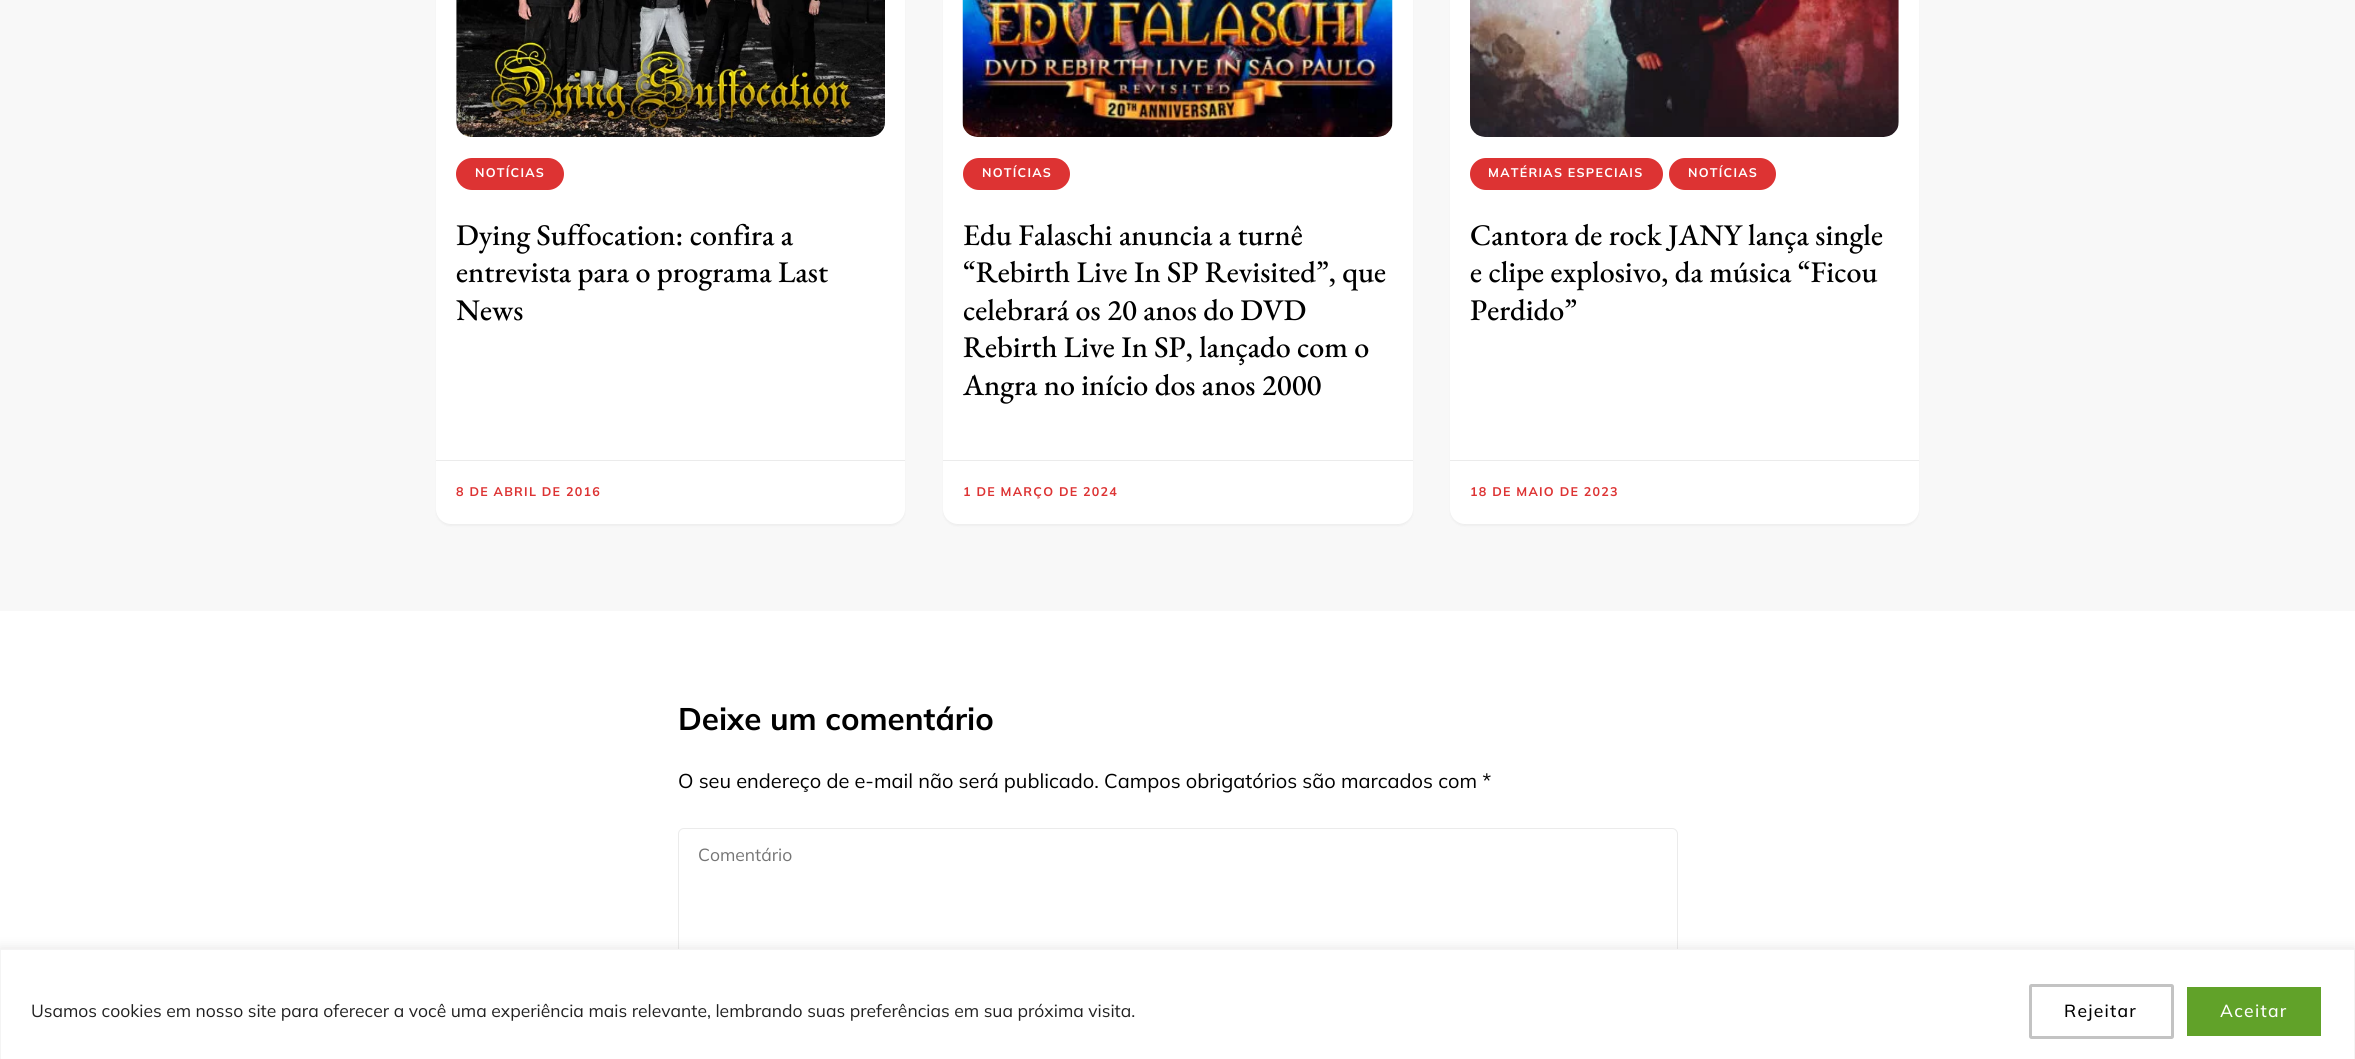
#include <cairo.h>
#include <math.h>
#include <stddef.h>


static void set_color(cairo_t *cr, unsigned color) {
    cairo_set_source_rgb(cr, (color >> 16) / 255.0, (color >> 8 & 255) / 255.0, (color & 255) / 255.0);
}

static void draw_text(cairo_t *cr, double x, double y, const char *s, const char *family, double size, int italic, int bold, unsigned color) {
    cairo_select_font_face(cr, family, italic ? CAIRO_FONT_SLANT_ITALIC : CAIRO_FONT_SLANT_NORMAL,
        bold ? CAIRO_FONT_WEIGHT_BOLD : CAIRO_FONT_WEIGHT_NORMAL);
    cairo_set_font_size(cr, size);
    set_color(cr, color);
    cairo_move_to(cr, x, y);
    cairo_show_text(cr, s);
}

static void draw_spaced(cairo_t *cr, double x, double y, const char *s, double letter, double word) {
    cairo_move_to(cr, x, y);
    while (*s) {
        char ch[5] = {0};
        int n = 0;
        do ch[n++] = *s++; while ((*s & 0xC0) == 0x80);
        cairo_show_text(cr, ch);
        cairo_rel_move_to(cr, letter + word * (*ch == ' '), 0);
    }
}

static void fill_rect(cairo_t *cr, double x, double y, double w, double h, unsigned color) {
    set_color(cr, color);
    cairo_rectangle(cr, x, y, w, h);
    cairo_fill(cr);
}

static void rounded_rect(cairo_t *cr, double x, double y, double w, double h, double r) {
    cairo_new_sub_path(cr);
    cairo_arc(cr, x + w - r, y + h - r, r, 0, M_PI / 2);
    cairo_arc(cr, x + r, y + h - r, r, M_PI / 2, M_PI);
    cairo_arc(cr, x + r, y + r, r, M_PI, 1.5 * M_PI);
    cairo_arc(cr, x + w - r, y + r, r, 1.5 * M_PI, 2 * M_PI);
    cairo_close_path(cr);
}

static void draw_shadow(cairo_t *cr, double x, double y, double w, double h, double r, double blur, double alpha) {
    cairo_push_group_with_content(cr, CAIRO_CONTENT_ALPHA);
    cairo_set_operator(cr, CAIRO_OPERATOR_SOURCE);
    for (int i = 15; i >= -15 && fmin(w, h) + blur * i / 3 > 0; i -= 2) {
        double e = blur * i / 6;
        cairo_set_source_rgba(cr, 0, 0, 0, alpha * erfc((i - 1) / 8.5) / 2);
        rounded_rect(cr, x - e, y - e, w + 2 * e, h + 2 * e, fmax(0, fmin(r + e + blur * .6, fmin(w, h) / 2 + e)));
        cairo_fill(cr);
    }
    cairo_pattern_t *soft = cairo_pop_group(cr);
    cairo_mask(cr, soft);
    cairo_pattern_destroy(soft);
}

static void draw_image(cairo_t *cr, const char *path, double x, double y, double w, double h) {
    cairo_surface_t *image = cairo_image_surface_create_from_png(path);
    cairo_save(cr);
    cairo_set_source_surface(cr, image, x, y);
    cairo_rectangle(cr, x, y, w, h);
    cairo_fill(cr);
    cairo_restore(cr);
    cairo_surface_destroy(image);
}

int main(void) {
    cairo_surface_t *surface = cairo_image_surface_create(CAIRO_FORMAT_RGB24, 2355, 1059);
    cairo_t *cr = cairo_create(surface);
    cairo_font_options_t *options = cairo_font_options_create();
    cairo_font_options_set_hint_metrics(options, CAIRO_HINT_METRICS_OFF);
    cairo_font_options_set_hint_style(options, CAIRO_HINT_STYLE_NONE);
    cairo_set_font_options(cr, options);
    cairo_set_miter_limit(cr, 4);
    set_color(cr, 0xF8F8F8);
    cairo_paint(cr);
    set_color(cr, 0x2D2D2D);
    draw_shadow(cr, 436, -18, 469, 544, 15, 1, 0.05);
    set_color(cr, 0xFFFFFF);
    rounded_rect(cr, 436, -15, 469, 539, 15);
    cairo_fill(cr);
    draw_image(cr, "assets/img1.png", 456, 0, 429, 137);
    set_color(cr, 0xDD3333);
    rounded_rect(cr, 456, 158, 108, 32, 16);
    cairo_fill(cr);
    cairo_select_font_face(cr, "Mulish", CAIRO_FONT_SLANT_NORMAL, CAIRO_FONT_WEIGHT_BOLD);
    cairo_set_font_size(cr, 12.5);
    set_color(cr, 0xFFFFFF);
    draw_spaced(cr, 475, 177, "NOTÍCIAS", 1.25, 0);
    draw_text(cr, 456, 245, "Dying Suffocation: confira a", "EB Garamond Medium", 30, 0, 0, 0x000000);
    draw_text(cr, 456, 282, "entrevista para o programa Last", "EB Garamond Medium", 30, 0, 0, 0x000000);
    draw_text(cr, 456, 320, "News", "EB Garamond Medium", 30, 0, 0, 0x000000);
    fill_rect(cr, 436, 460, 469, 1, 0xEBEBEB);
    cairo_select_font_face(cr, "Mulish", CAIRO_FONT_SLANT_NORMAL, CAIRO_FONT_WEIGHT_BOLD);
    cairo_set_font_size(cr, 12.5);
    set_color(cr, 0xDD3333);
    draw_spaced(cr, 456, 496, "8 DE ABRIL DE 2016", 1.25, 0);
    set_color(cr, 0x2D2D2D);
    draw_shadow(cr, 943, -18, 470, 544, 15, 1, 0.05);
    set_color(cr, 0xFFFFFF);
    rounded_rect(cr, 943, -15, 470, 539, 15);
    cairo_fill(cr);
    draw_image(cr, "assets/img2.png", 962, 0, 431, 137);
    set_color(cr, 0xDD3333);
    rounded_rect(cr, 963, 158, 107, 32, 16);
    cairo_fill(cr);
    set_color(cr, 0xFFFFFF);
    draw_spaced(cr, 982, 177, "NOTÍCIAS", 1.25, 0);
    draw_text(cr, 963, 245, "Edu Falaschi anuncia a turnê", "EB Garamond Medium", 30, 0, 0, 0x000000);
    draw_text(cr, 963, 282, "“Rebirth Live In SP Revisited”, que", "EB Garamond Medium", 30, 0, 0, 0x000000);
    draw_text(cr, 963, 320, "celebrará os 20 anos do DVD", "EB Garamond Medium", 30, 0, 0, 0x000000);
    draw_text(cr, 963, 357, "Rebirth Live In SP, lançado com o", "EB Garamond Medium", 30, 0, 0, 0x000000);
    draw_text(cr, 963, 395, "Angra no início dos anos 2000", "EB Garamond Medium", 30, 0, 0, 0x000000);
    fill_rect(cr, 943, 460, 470, 1, 0xEBEBEB);
    cairo_select_font_face(cr, "Mulish", CAIRO_FONT_SLANT_NORMAL, CAIRO_FONT_WEIGHT_BOLD);
    cairo_set_font_size(cr, 12.5);
    set_color(cr, 0xDD3333);
    draw_spaced(cr, 963, 496, "1 DE MARÇO DE 2024", 1.25, 0);
    set_color(cr, 0x2D2D2D);
    draw_shadow(cr, 1450, -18, 469, 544, 15, 1, 0.05);
    set_color(cr, 0xFFFFFF);
    rounded_rect(cr, 1450, -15, 469, 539, 15);
    cairo_fill(cr);
    draw_image(cr, "assets/img3.png", 1470, 0, 429, 137);
    set_color(cr, 0xDD3333);
    rounded_rect(cr, 1470, 158, 193, 32, 16);
    cairo_fill(cr);
    set_color(cr, 0xFFFFFF);
    draw_spaced(cr, 1488, 177, "MATÉRIAS ESPECIAIS", 1.25, 0);
    set_color(cr, 0xDD3333);
    rounded_rect(cr, 1669, 158, 107, 32, 16);
    cairo_fill(cr);
    set_color(cr, 0xFFFFFF);
    draw_spaced(cr, 1688, 177, "NOTÍCIAS", 1.25, 0);
    draw_text(cr, 1470, 245, "Cantora de rock JANY lança single", "EB Garamond Medium", 30, 0, 0, 0x000000);
    draw_text(cr, 1470, 282, "e clipe explosivo, da música “Ficou", "EB Garamond Medium", 30, 0, 0, 0x000000);
    draw_text(cr, 1470, 320, "Perdido”", "EB Garamond Medium", 30, 0, 0, 0x000000);
    fill_rect(cr, 1450, 460, 469, 1, 0xEBEBEB);
    cairo_select_font_face(cr, "Mulish", CAIRO_FONT_SLANT_NORMAL, CAIRO_FONT_WEIGHT_BOLD);
    cairo_set_font_size(cr, 12.5);
    set_color(cr, 0xDD3333);
    draw_spaced(cr, 1470, 496, "18 DE MAIO DE 2023", 1.25, 0);
    fill_rect(cr, 0, 611, 2355, 338, 0xFFFFFF);
    draw_text(cr, 678, 730, "Deixe um comentário", "Mulish", 31.25, 0, 1, 0x000000);
    draw_text(cr, 678, 788, "O seu endereço de e-mail não será publicado. Campos obrigatórios são marcados com *", "Mulish", 20, 0, 0, 0x000000);
    rounded_rect(cr, 678.5, 828.5, 999, 186, 5.5);
    set_color(cr, 0xEBEBEB);
    cairo_set_line_width(cr, 1);
    cairo_stroke(cr);
    draw_text(cr, 698, 861, "Comentário", "Mulish", 17.5, 0, 0, 0x757575);
    set_color(cr, 0xACABAB);
    draw_shadow(cr, 0, 948, 2355, 111, 0, 6, 0.3);
    set_color(cr, 0xFFFFFF);
    cairo_rectangle(cr, 0.5, 949.5, 2354, 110);
    cairo_fill_preserve(cr);
    set_color(cr, 0xF4F4F4);
    cairo_stroke(cr);
    draw_text(cr, 31, 1017, "Usamos cookies em nosso site para oferecer a você uma experiência mais relevante, lembrando suas preferências em sua próxima visita.", "Mulish", 17.5, 0, 0, 0x212121);
    rounded_rect(cr, 2030.5, 985.5, 142, 52, 1);
    set_color(cr, 0xC3C3C3);
    cairo_set_line_width(cr, 3);
    cairo_stroke(cr);
    cairo_select_font_face(cr, "Mulish Medium", CAIRO_FONT_SLANT_NORMAL, CAIRO_FONT_WEIGHT_NORMAL);
    set_color(cr, 0x000000);
    draw_spaced(cr, 2064, 1017, "Rejeitar", 1.25, 0);
    set_color(cr, 0x61A229);
    rounded_rect(cr, 2185.5, 985.5, 137, 52, 1);
    cairo_fill_preserve(cr);
    set_color(cr, 0xFFFFFF);
    cairo_stroke(cr);
    draw_spaced(cr, 2220, 1017, "Aceitar", 1.25, 0);
    cairo_surface_write_to_png(surface, "output.png");
    cairo_font_options_destroy(options);
    cairo_destroy(cr);
    cairo_surface_destroy(surface);
    return 0;
}
